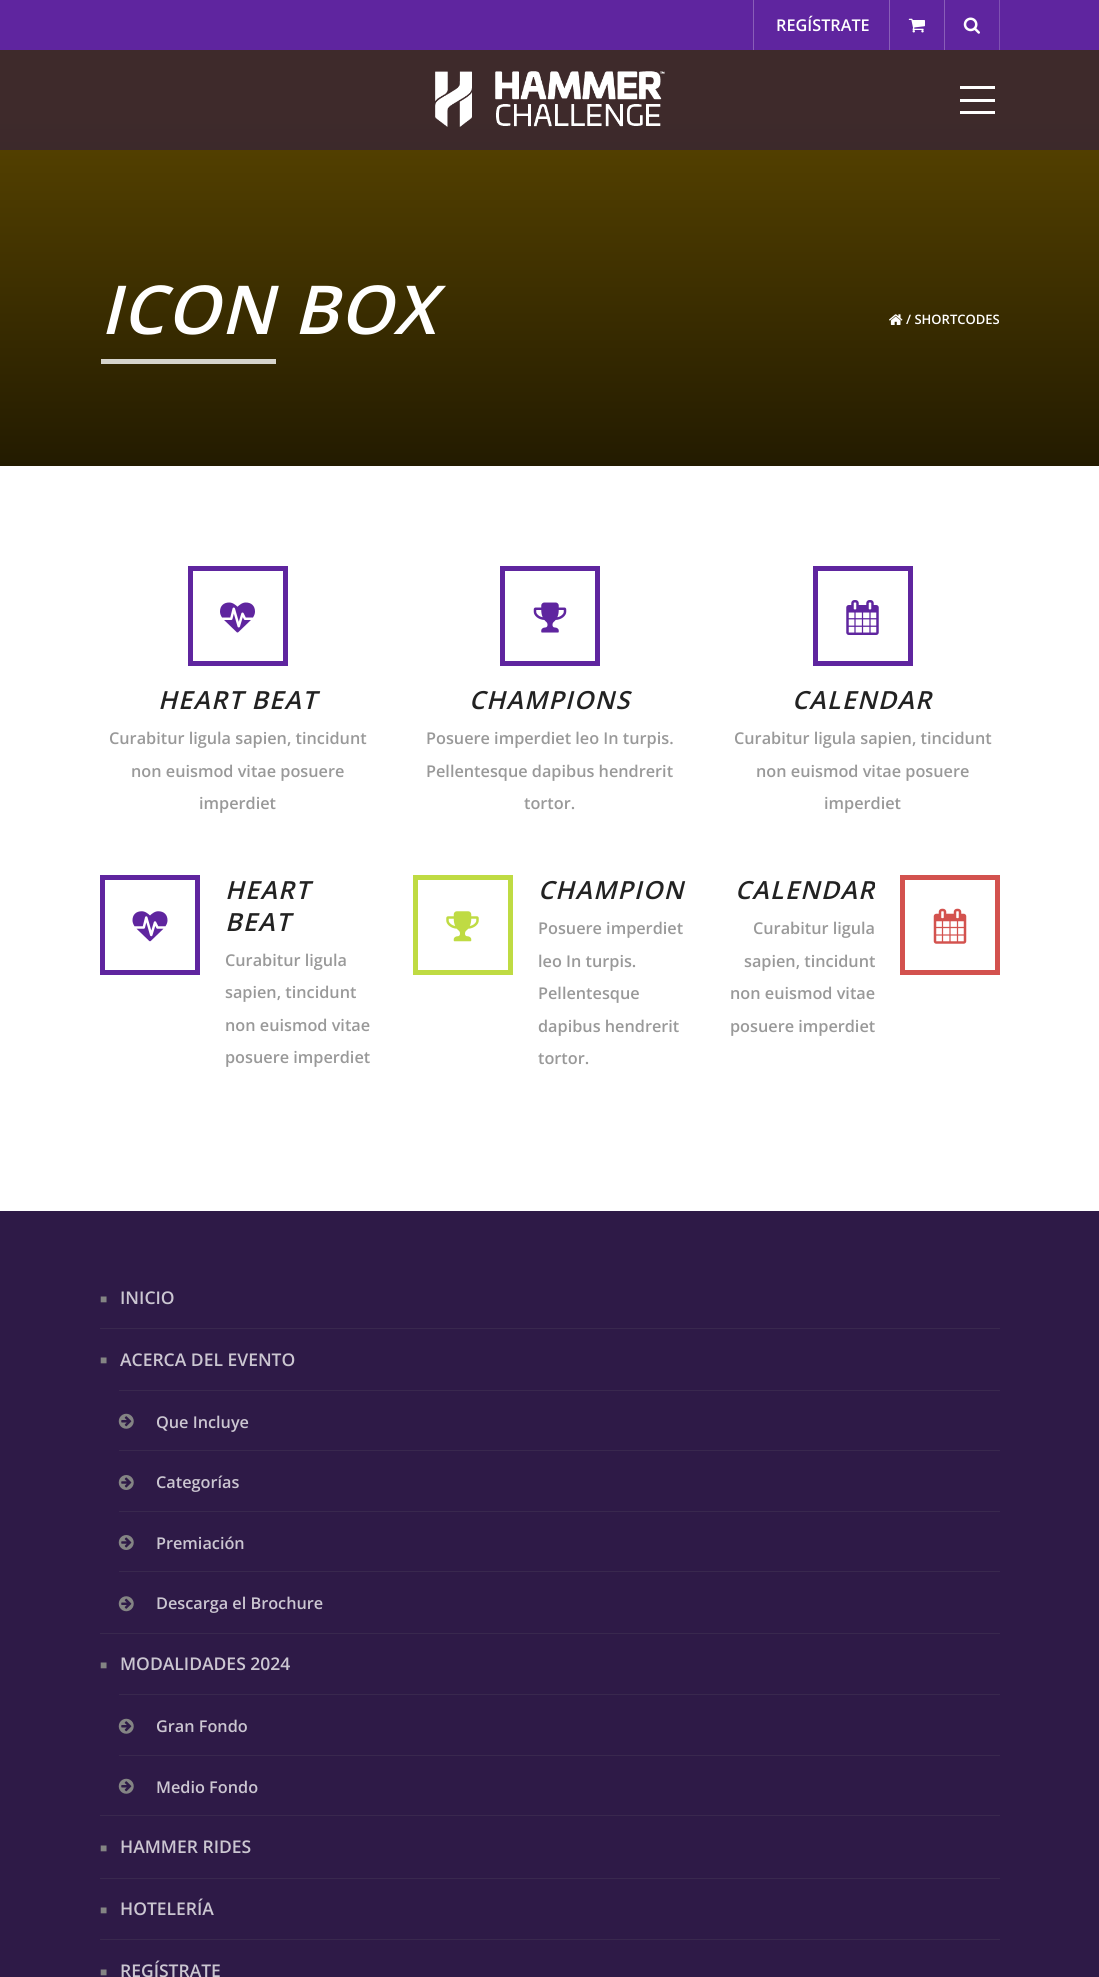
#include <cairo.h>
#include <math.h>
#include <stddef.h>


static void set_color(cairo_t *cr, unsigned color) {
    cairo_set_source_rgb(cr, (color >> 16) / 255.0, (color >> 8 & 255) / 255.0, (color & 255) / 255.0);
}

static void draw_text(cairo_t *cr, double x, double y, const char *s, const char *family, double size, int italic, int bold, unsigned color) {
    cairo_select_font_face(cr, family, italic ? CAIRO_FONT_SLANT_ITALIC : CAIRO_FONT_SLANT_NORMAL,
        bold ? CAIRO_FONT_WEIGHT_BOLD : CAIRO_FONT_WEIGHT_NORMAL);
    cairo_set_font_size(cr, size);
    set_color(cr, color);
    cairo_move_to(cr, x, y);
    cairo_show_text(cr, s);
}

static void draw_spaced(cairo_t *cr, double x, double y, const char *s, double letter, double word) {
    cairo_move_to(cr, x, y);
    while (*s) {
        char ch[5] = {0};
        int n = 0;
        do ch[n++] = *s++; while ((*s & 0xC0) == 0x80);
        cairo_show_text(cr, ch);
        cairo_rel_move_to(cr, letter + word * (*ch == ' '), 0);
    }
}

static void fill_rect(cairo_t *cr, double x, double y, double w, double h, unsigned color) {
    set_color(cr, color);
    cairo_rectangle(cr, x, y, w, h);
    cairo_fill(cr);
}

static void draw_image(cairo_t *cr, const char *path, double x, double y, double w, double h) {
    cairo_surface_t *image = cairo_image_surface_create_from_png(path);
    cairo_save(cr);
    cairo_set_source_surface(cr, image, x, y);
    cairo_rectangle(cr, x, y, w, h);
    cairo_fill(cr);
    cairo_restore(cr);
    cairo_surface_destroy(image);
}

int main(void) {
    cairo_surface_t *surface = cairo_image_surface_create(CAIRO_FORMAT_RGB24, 1099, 1977);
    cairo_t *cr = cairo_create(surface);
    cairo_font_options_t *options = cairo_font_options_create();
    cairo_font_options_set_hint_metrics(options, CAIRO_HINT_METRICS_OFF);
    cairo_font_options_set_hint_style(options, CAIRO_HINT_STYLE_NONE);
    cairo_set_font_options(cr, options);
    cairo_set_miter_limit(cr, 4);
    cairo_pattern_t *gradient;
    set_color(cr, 0xFFFFFF);
    cairo_paint(cr);
    fill_rect(cr, 0, 0, 1099, 50, 0x5F259F);
    fill_rect(cr, 753, 0, 1, 50, 0x895EB8);
    draw_text(cr, 776, 31, "REGÍSTRATE", "Open Sans SemiBold", 16.25, 0, 0, 0xFFFFFF);
    fill_rect(cr, 889, 0, 1, 50, 0x895EB8);
    draw_image(cr, "assets/img1.png", 908, 18, 17, 15);
    fill_rect(cr, 999, 0, 1, 50, 0x7F51B2);
    fill_rect(cr, 944, 0, 1, 50, 0x895EB8);
    draw_image(cr, "assets/img2.png", 963, 17, 17, 17);
    fill_rect(cr, 0, 50, 1099, 66, 0x3E2A2B);
    gradient = cairo_pattern_create_linear(550, 116, 550, 466);
    cairo_pattern_add_color_stop_rgba(gradient, 0, 0.243, 0.165, 0.169, 1);
    cairo_pattern_add_color_stop_rgba(gradient, 1, 0.165, 0.102, 0.169, 1);
    cairo_set_source(cr, gradient);
    cairo_pattern_destroy(gradient);
    cairo_rectangle(cr, 0, 116, 1099, 34);
    cairo_fill(cr);
    draw_image(cr, "assets/img3.png", 435, 71, 230, 56);
    fill_rect(cr, 960, 86, 35, 3, 0xFFFFFF);
    fill_rect(cr, 960, 111, 35, 3, 0xFFFFFF);
    fill_rect(cr, 960, 99, 35, 3, 0xFFFFFF);
    gradient = cairo_pattern_create_linear(550, 116, 550, 466);
    cairo_pattern_add_color_stop_rgba(gradient, 0, 0.341, 0.263, 0, 1);
    cairo_pattern_add_color_stop_rgba(gradient, 1, 0.137, 0.106, 0, 1);
    cairo_set_source(cr, gradient);
    cairo_pattern_destroy(gradient);
    cairo_rectangle(cr, 0, 150, 1099, 316);
    cairo_fill(cr);
    cairo_select_font_face(cr, "Open Sans SemiBold", CAIRO_FONT_SLANT_ITALIC, CAIRO_FONT_WEIGHT_NORMAL);
    cairo_set_font_size(cr, 67.5);
    set_color(cr, 0xFFFFFF);
    draw_spaced(cr, 100, 334, "ICON BOX", 1.25, 0);
    fill_rect(cr, 101, 359, 175, 5, 0xD6D4CC);
    draw_image(cr, "assets/img4.png", 889, 314, 14, 11);
    draw_text(cr, 906, 324, "/ SHORTCODES", "Open Sans SemiBold", 13, 0, 0, 0xFFFFFF);
    cairo_rectangle(cr, 190.5, 568.5, 95, 95);
    set_color(cr, 0x5F259F);
    cairo_set_line_width(cr, 5);
    cairo_stroke(cr);
    draw_image(cr, "assets/img5.png", 220, 602, 35, 31);
    cairo_select_font_face(cr, "Open Sans SemiBold", CAIRO_FONT_SLANT_ITALIC, CAIRO_FONT_WEIGHT_NORMAL);
    cairo_set_font_size(cr, 25);
    set_color(cr, 0x222222);
    draw_spaced(cr, 158, 709, "HEART BEAT", 1.25, 0);
    draw_text(cr, 109, 744, "Curabitur ligula sapien, tincidunt", "Open Sans SemiBold", 16.25, 0, 0, 0x999999);
    draw_text(cr, 131, 777, "non euismod vitae posuere", "Open Sans SemiBold", 16.25, 0, 0, 0x999999);
    draw_text(cr, 199, 809, "imperdiet", "Open Sans SemiBold", 16.25, 0, 0, 0x999999);
    cairo_rectangle(cr, 502.5, 568.5, 95, 95);
    set_color(cr, 0x5F259F);
    cairo_stroke(cr);
    draw_image(cr, "assets/img6.png", 533, 602, 34, 31);
    cairo_select_font_face(cr, "Open Sans SemiBold", CAIRO_FONT_SLANT_ITALIC, CAIRO_FONT_WEIGHT_NORMAL);
    cairo_set_font_size(cr, 25);
    set_color(cr, 0x222222);
    draw_spaced(cr, 469, 709, "CHAMPIONS", 1.25, 0);
    draw_text(cr, 426, 744, "Posuere imperdiet leo In turpis.", "Open Sans SemiBold", 16.25, 0, 0, 0x999999);
    draw_text(cr, 426, 777, "Pellentesque dapibus hendrerit", "Open Sans SemiBold", 16.25, 0, 0, 0x999999);
    draw_text(cr, 524, 809, "tortor.", "Open Sans SemiBold", 16.25, 0, 0, 0x999999);
    cairo_rectangle(cr, 815.5, 568.5, 95, 95);
    set_color(cr, 0x5F259F);
    cairo_stroke(cr);
    draw_image(cr, "assets/img7.png", 846, 600, 33, 35);
    cairo_select_font_face(cr, "Open Sans SemiBold", CAIRO_FONT_SLANT_ITALIC, CAIRO_FONT_WEIGHT_NORMAL);
    cairo_set_font_size(cr, 25);
    set_color(cr, 0x222222);
    draw_spaced(cr, 792, 709, "CALENDAR", 1.25, 0);
    draw_text(cr, 734, 744, "Curabitur ligula sapien, tincidunt", "Open Sans SemiBold", 16.25, 0, 0, 0x999999);
    draw_text(cr, 756, 777, "non euismod vitae posuere", "Open Sans SemiBold", 16.25, 0, 0, 0x999999);
    draw_text(cr, 824, 809, "imperdiet", "Open Sans SemiBold", 16.25, 0, 0, 0x999999);
    cairo_rectangle(cr, 102.5, 877.5, 95, 95);
    set_color(cr, 0x5F259F);
    cairo_stroke(cr);
    draw_image(cr, "assets/img8.png", 132, 911, 36, 31);
    cairo_select_font_face(cr, "Open Sans SemiBold", CAIRO_FONT_SLANT_ITALIC, CAIRO_FONT_WEIGHT_NORMAL);
    cairo_set_font_size(cr, 25);
    set_color(cr, 0x222222);
    draw_spaced(cr, 225, 899, "HEART", 1.25, 0);
    draw_spaced(cr, 225, 931, "BEAT", 1.25, 0);
    draw_text(cr, 225, 966, "Curabitur ligula", "Open Sans SemiBold", 16.25, 0, 0, 0x999999);
    draw_text(cr, 225, 998, "sapien, tincidunt", "Open Sans SemiBold", 16.25, 0, 0, 0x999999);
    draw_text(cr, 225, 1031, "non euismod vitae", "Open Sans SemiBold", 16.25, 0, 0, 0x999999);
    draw_text(cr, 225, 1063, "posuere imperdiet", "Open Sans SemiBold", 16.25, 0, 0, 0x999999);
    cairo_rectangle(cr, 415.5, 877.5, 95, 95);
    set_color(cr, 0xBFDB43);
    cairo_stroke(cr);
    draw_image(cr, "assets/img9.png", 446, 911, 33, 31);
    cairo_select_font_face(cr, "Open Sans SemiBold", CAIRO_FONT_SLANT_ITALIC, CAIRO_FONT_WEIGHT_NORMAL);
    cairo_set_font_size(cr, 25);
    set_color(cr, 0x222222);
    draw_spaced(cr, 538, 899, "CHAMPION", 1.25, 0);
    draw_text(cr, 538, 934, "Posuere imperdiet", "Open Sans SemiBold", 16.25, 0, 0, 0x999999);
    draw_text(cr, 538, 967, "leo In turpis.", "Open Sans SemiBold", 16.25, 0, 0, 0x999999);
    draw_text(cr, 538, 999, "Pellentesque", "Open Sans SemiBold", 16.25, 0, 0, 0x999999);
    draw_text(cr, 538, 1032, "dapibus hendrerit", "Open Sans SemiBold", 16.25, 0, 0, 0x999999);
    draw_text(cr, 538, 1064, "tortor.", "Open Sans SemiBold", 16.25, 0, 0, 0x999999);
    cairo_save(cr);
    cairo_rectangle(cr, 725, 875, 150, 179);
    cairo_clip(cr);
    cairo_select_font_face(cr, "Open Sans SemiBold", CAIRO_FONT_SLANT_ITALIC, CAIRO_FONT_WEIGHT_NORMAL);
    cairo_set_font_size(cr, 25);
    set_color(cr, 0x222222);
    draw_spaced(cr, 735, 899, "CALENDAR", 1.25, 0);
    cairo_restore(cr);
    draw_text(cr, 753, 934, "Curabitur ligula", "Open Sans SemiBold", 16.25, 0, 0, 0x999999);
    draw_text(cr, 744, 967, "sapien, tincidunt", "Open Sans SemiBold", 16.25, 0, 0, 0x999999);
    draw_text(cr, 730, 999, "non euismod vitae", "Open Sans SemiBold", 16.25, 0, 0, 0x999999);
    draw_text(cr, 730, 1032, "posuere imperdiet", "Open Sans SemiBold", 16.25, 0, 0, 0x999999);
    cairo_rectangle(cr, 902.5, 877.5, 95, 95);
    set_color(cr, 0xD3524E);
    cairo_stroke(cr);
    draw_image(cr, "assets/img10.png", 933, 908, 34, 36);
    fill_rect(cr, 0, 1211, 1099, 766, 0x2E1A47);
    draw_text(cr, 100, 1303, "■", "Liberation Sans", 12, 0, 0, 0x848484);
    draw_text(cr, 120, 1304, "INICIO", "Open Sans SemiBold", 17.5, 0, 0, 0xCBC6D1);
    fill_rect(cr, 100, 1328, 900, 1, 0x39284E);
    draw_text(cr, 100, 1364, "■", "Liberation Sans", 12, 0, 0, 0x848484);
    draw_text(cr, 120, 1366, "ACERCA DEL EVENTO", "Open Sans SemiBold", 17.5, 0, 0, 0xCBC6D1);
    fill_rect(cr, 119, 1390, 881, 1, 0x39284E);
    draw_image(cr, "assets/img11.png", 118, 1413, 16, 16);
    draw_text(cr, 156, 1428, "Que Incluye", "Open Sans SemiBold", 16.25, 0, 0, 0xCBC6D1);
    fill_rect(cr, 119, 1450, 881, 1, 0x39284E);
    draw_image(cr, "assets/img12.png", 118, 1475, 16, 15);
    draw_text(cr, 156, 1488, "Categorías", "Open Sans SemiBold", 16.25, 0, 0, 0xCBC6D1);
    fill_rect(cr, 119, 1511, 881, 1, 0x39284E);
    draw_image(cr, "assets/img12.png", 118, 1535, 16, 15);
    draw_text(cr, 156, 1549, "Premiación", "Open Sans SemiBold", 16.25, 0, 0, 0xCBC6D1);
    fill_rect(cr, 119, 1571, 881, 1, 0x39284E);
    draw_image(cr, "assets/img13.png", 118, 1596, 16, 16);
    draw_text(cr, 156, 1609, "Descarga el Brochure", "Open Sans SemiBold", 16.25, 0, 0, 0xCBC6D1);
    fill_rect(cr, 100, 1633, 900, 1, 0x39284E);
    draw_text(cr, 100, 1669, "■", "Liberation Sans", 12, 0, 0, 0x848484);
    draw_text(cr, 120, 1670, "MODALIDADES 2024", "Open Sans SemiBold", 17.5, 0, 0, 0xCBC6D1);
    fill_rect(cr, 119, 1694, 881, 1, 0x39284E);
    draw_image(cr, "assets/img11.png", 118, 1718, 16, 16);
    draw_text(cr, 156, 1732, "Gran Fondo", "Open Sans SemiBold", 16.25, 0, 0, 0xCBC6D1);
    fill_rect(cr, 119, 1755, 881, 1, 0x39284E);
    draw_image(cr, "assets/img11.png", 118, 1778, 16, 16);
    draw_text(cr, 156, 1793, "Medio Fondo", "Open Sans SemiBold", 16.25, 0, 0, 0xCBC6D1);
    fill_rect(cr, 100, 1815, 900, 1, 0x39284E);
    draw_text(cr, 100, 1852, "■", "Liberation Sans", 12, 0, 0, 0x848484);
    draw_text(cr, 120, 1853, "HAMMER RIDES", "Open Sans SemiBold", 17.5, 0, 0, 0xCBC6D1);
    fill_rect(cr, 100, 1878, 900, 1, 0x39284E);
    draw_text(cr, 100, 1914, "■", "Liberation Sans", 12, 0, 0, 0x848484);
    draw_text(cr, 120, 1915, "HOTELERÍA", "Open Sans SemiBold", 17.5, 0, 0, 0xCBC6D1);
    fill_rect(cr, 100, 1939, 900, 1, 0x39284E);
    draw_text(cr, 100, 1976, "■", "Liberation Sans", 12, 0, 0, 0x848484);
    draw_text(cr, 120, 1977, "REGÍSTRATE", "Open Sans SemiBold", 17.5, 0, 0, 0xCBC6D1);
    cairo_surface_write_to_png(surface, "output.png");
    cairo_font_options_destroy(options);
    cairo_destroy(cr);
    cairo_surface_destroy(surface);
    return 0;
}
